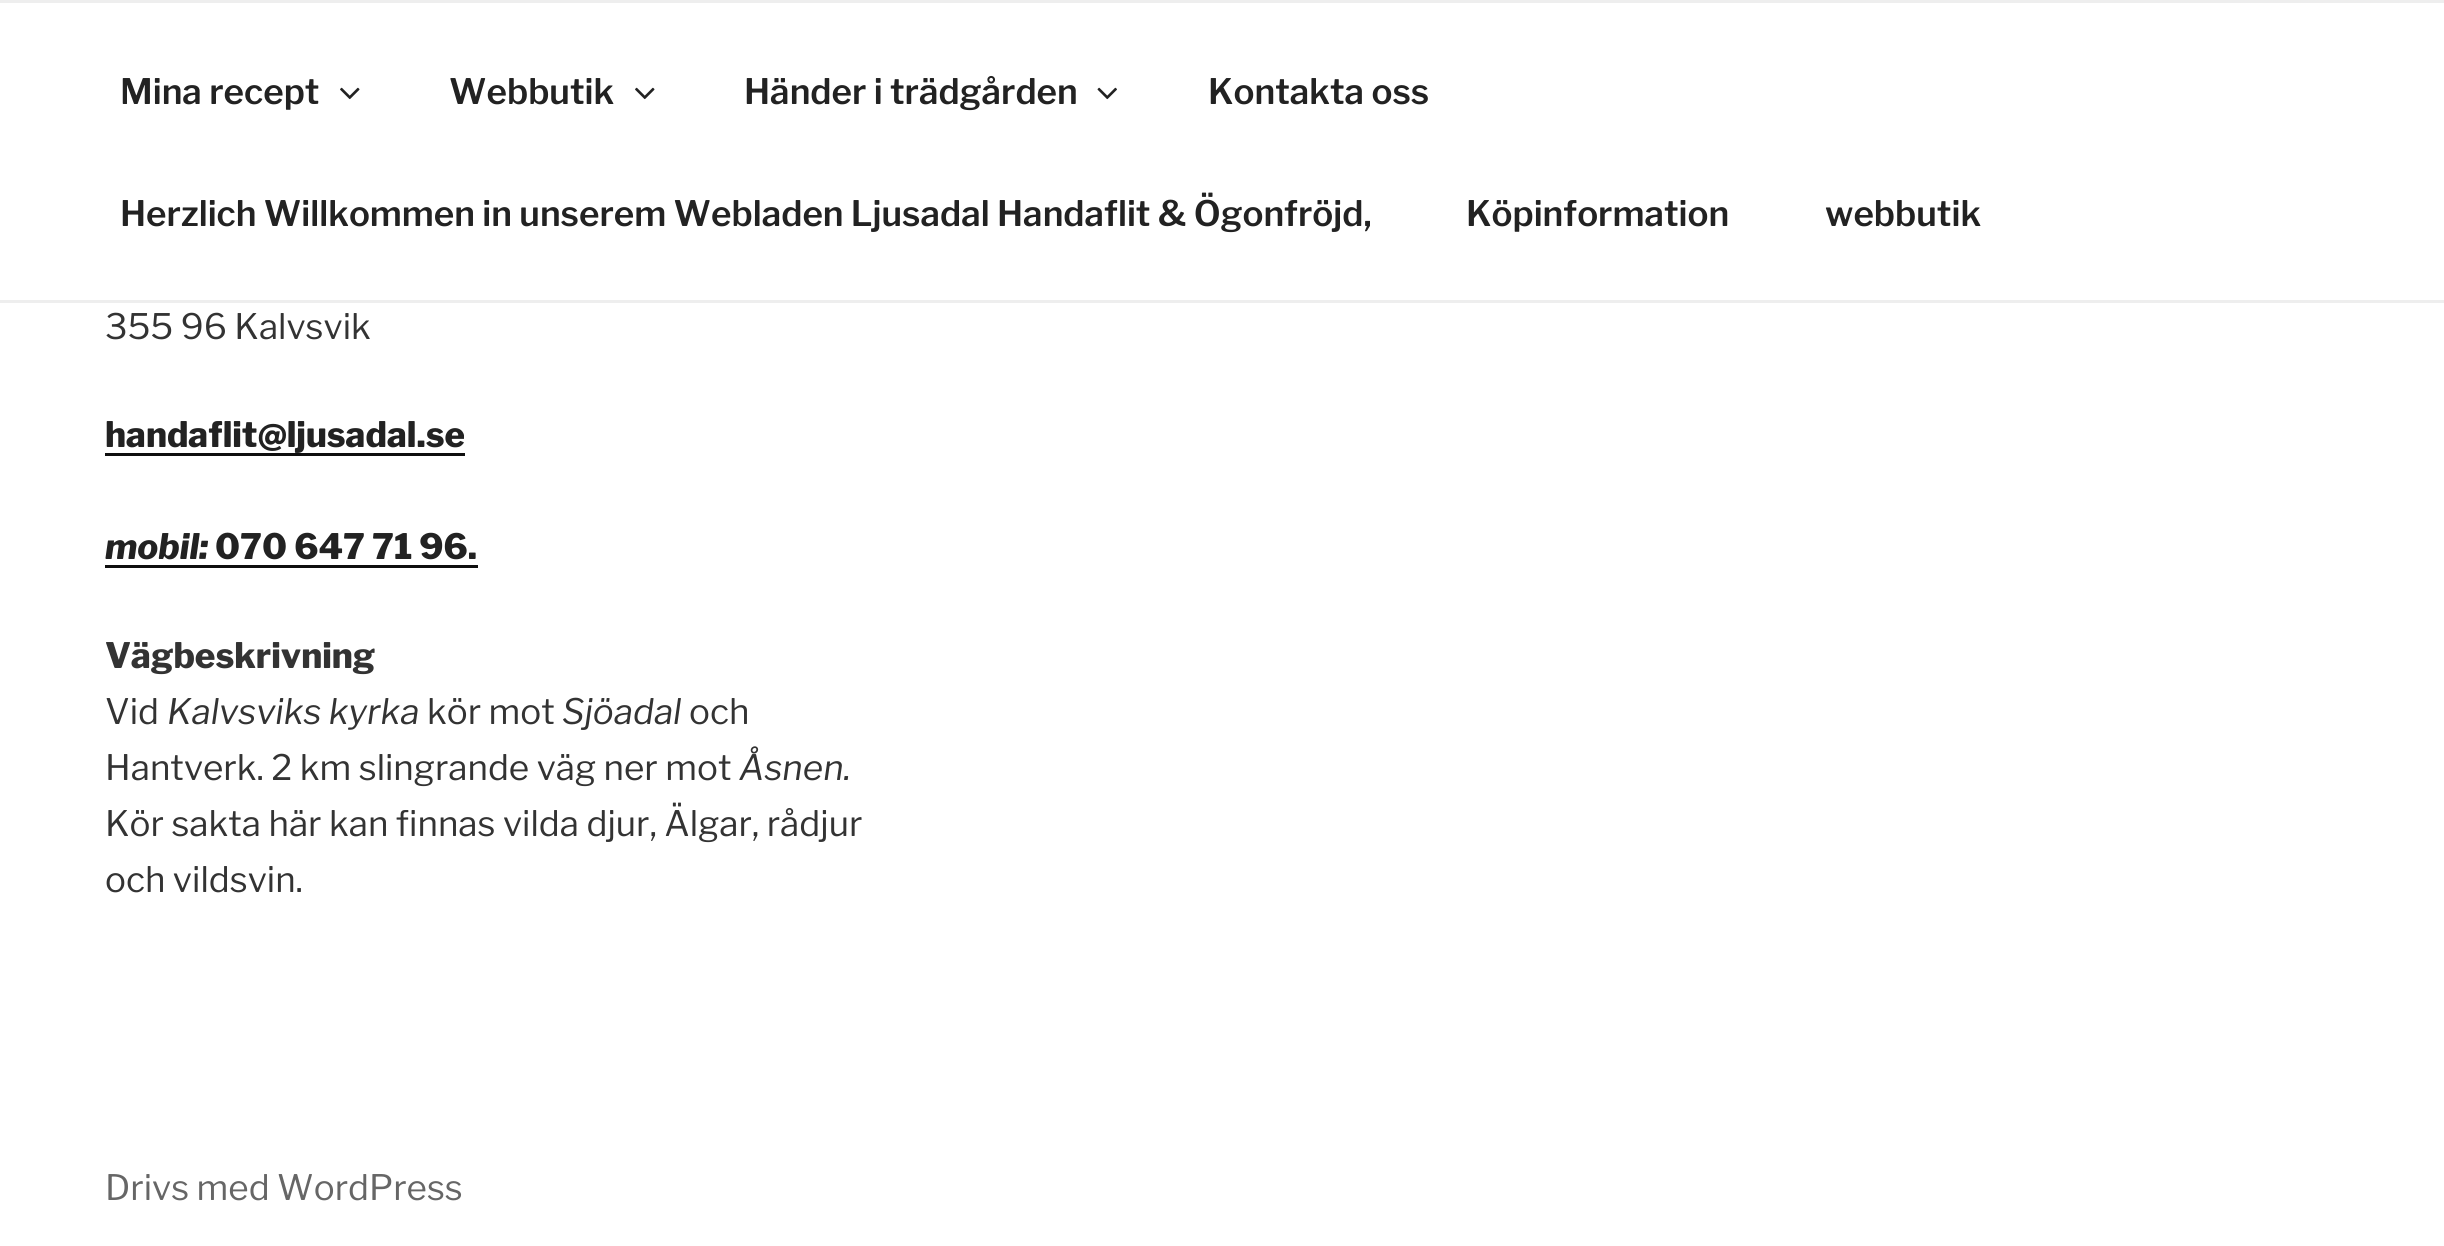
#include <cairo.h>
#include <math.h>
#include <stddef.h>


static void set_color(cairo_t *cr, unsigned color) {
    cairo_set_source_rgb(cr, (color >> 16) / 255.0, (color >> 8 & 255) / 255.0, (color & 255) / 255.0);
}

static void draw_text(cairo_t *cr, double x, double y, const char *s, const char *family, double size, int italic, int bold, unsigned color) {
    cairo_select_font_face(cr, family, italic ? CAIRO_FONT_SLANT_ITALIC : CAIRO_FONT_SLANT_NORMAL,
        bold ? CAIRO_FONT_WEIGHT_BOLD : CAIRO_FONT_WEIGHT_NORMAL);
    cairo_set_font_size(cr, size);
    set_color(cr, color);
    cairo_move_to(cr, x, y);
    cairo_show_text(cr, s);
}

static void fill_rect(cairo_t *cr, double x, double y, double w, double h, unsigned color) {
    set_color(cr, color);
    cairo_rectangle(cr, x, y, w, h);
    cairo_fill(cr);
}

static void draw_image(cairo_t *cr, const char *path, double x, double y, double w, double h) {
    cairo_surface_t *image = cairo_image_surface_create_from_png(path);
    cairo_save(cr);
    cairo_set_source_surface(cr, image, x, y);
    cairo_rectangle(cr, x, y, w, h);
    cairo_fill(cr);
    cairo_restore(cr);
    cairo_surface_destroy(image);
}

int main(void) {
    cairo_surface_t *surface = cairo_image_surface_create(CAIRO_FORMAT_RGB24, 2444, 1246);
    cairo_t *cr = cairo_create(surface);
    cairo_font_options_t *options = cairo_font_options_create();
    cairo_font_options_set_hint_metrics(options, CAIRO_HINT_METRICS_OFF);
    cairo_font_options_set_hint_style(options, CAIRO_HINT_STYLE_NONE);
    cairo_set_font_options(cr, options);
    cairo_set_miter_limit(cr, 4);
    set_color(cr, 0xFFFFFF);
    cairo_paint(cr);
    fill_rect(cr, 0, 0, 2444, 3, 0xEEEEEE);
    fill_rect(cr, 0, 300, 2444, 3, 0xEEEEEE);
    draw_text(cr, 120, 104, "Mina recept", "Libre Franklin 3 Thin", 35, 0, 0, 0x222222);
    draw_image(cr, "assets/img1.png", 340, 87, 20, 13);
    draw_text(cr, 449, 104, "Webbutik", "Libre Franklin 3 Thin", 35, 0, 0, 0x222222);
    draw_image(cr, "assets/img1.png", 635, 87, 20, 13);
    draw_text(cr, 744, 104, "Händer i trädgården", "Libre Franklin 3 Thin", 35, 0, 0, 0x222222);
    draw_image(cr, "assets/img2.png", 1097, 87, 20, 13);
    draw_text(cr, 1208, 104, "Kontakta oss", "Libre Franklin 3 Thin", 35, 0, 0, 0x222222);
    draw_text(cr, 120, 226, "Herzlich Willkommen in unserem Webladen Ljusadal Handaflit & Ögonfröjd,", "Libre Franklin 3 Thin", 35, 0, 0, 0x222222);
    draw_text(cr, 1466, 226, "Köpinformation", "Libre Franklin 3 Thin", 35, 0, 0, 0x222222);
    draw_text(cr, 1825, 226, "webbutik", "Libre Franklin 3 Thin", 35, 0, 0, 0x222222);
    draw_text(cr, 105, 339, "355 96 Kalvsvik", "Libre Franklin Thin", 35, 0, 0, 0x333333);
    draw_text(cr, 105, 447, "handaflit@ljusadal.se", "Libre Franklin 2 Thin", 35, 0, 0, 0x222222);
    fill_rect(cr, 105, 453, 360, 3, 0x0F0F0F);
    draw_text(cr, 105, 559, "mobil:", "Libre Franklin Thin", 35, 1, 0, 0x222222);
    fill_rect(cr, 105, 565, 373, 3, 0x0F0F0F);
    draw_text(cr, 215, 559, "070 647 71 96.", "Libre Franklin 2 Thin", 35, 0, 0, 0x222222);
    draw_text(cr, 105, 668, "Vägbeskrivning", "Libre Franklin 2 Thin", 35, 0, 0, 0x333333);
    draw_text(cr, 105, 724, "Vid", "Libre Franklin Thin", 35, 0, 0, 0x333333);
    draw_text(cr, 167, 724, "Kalvsviks kyrka", "Libre Franklin 2 Thin", 35, 1, 0, 0x333333);
    draw_text(cr, 427, 724, "kör mot", "Libre Franklin Thin", 35, 0, 0, 0x333333);
    draw_text(cr, 562, 724, "Sjöadal", "Libre Franklin 2 Thin", 35, 1, 0, 0x333333);
    draw_text(cr, 689, 724, "och", "Libre Franklin Thin", 35, 0, 0, 0x333333);
    draw_text(cr, 105, 780, "Hantverk. 2 km slingrande väg ner mot", "Libre Franklin Thin", 35, 0, 0, 0x333333);
    draw_text(cr, 739, 780, "Åsnen.", "Libre Franklin 2 Thin", 35, 1, 0, 0x333333);
    draw_text(cr, 105, 836, "Kör sakta här kan finnas vilda djur, Älgar, rådjur", "Libre Franklin Thin", 35, 0, 0, 0x333333);
    draw_text(cr, 105, 892, "och vildsvin.", "Libre Franklin Thin", 35, 0, 0, 0x333333);
    draw_text(cr, 105, 1200, "Drivs med WordPress", "Libre Franklin Thin", 35, 0, 0, 0x666666);
    cairo_surface_write_to_png(surface, "output.png");
    cairo_font_options_destroy(options);
    cairo_destroy(cr);
    cairo_surface_destroy(surface);
    return 0;
}
